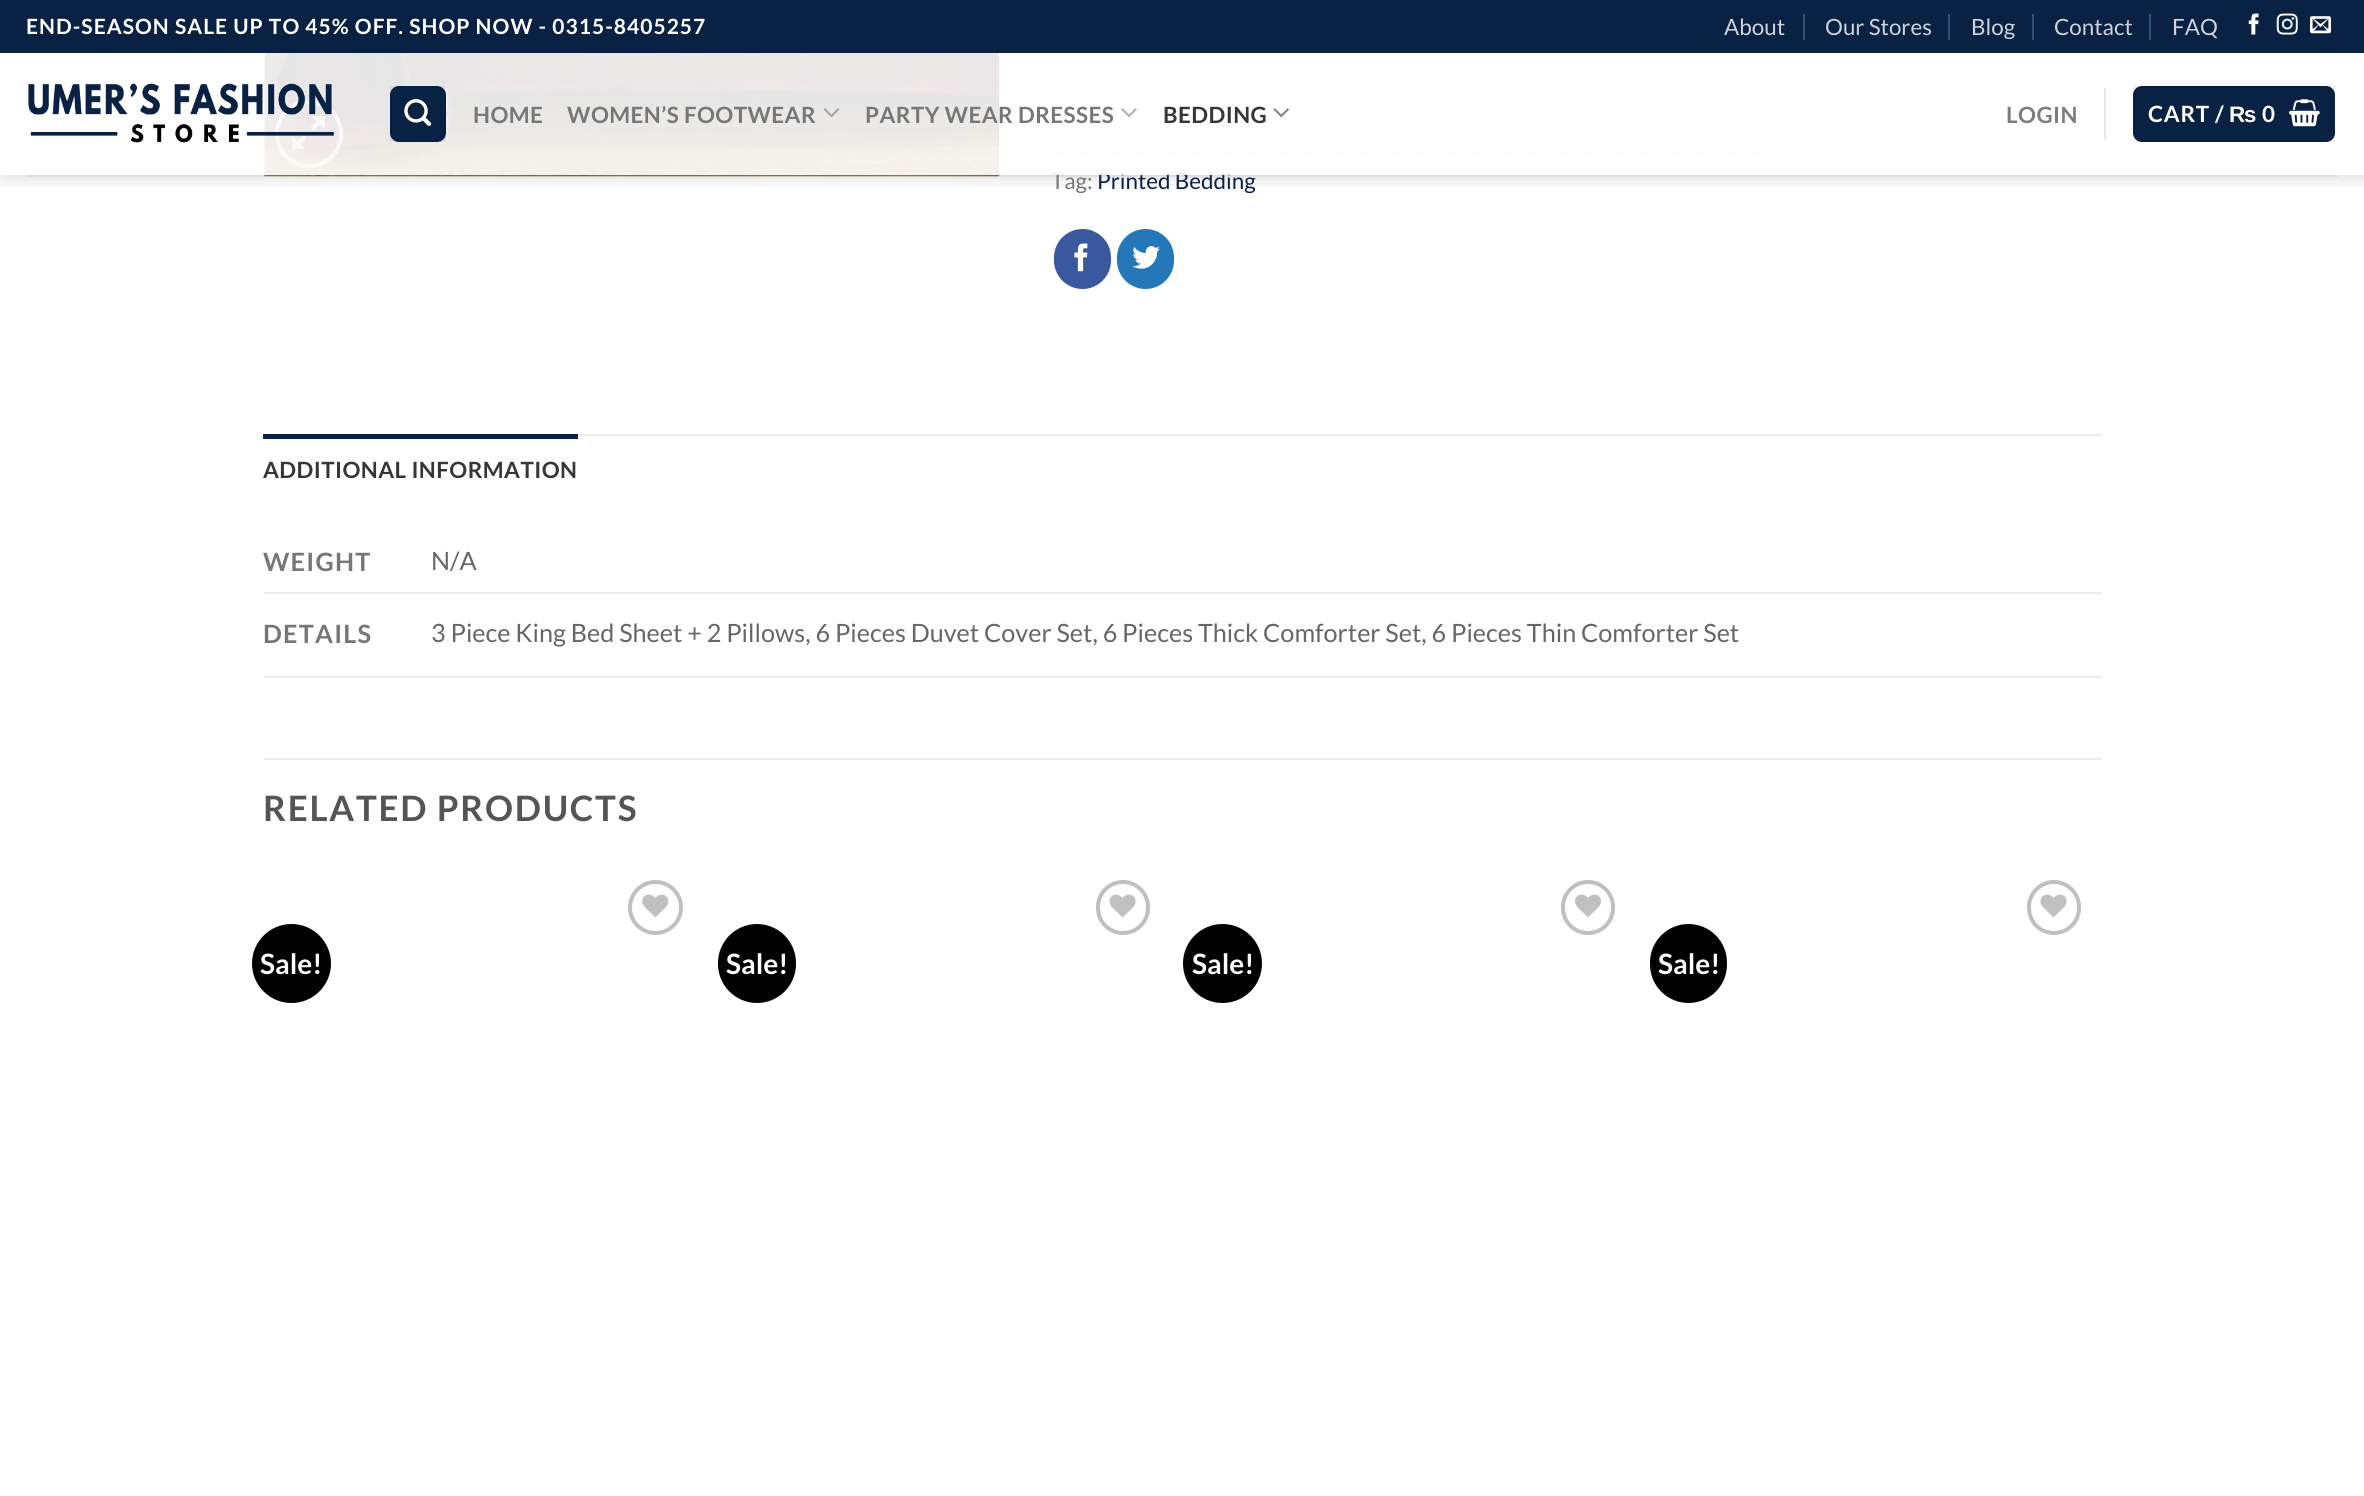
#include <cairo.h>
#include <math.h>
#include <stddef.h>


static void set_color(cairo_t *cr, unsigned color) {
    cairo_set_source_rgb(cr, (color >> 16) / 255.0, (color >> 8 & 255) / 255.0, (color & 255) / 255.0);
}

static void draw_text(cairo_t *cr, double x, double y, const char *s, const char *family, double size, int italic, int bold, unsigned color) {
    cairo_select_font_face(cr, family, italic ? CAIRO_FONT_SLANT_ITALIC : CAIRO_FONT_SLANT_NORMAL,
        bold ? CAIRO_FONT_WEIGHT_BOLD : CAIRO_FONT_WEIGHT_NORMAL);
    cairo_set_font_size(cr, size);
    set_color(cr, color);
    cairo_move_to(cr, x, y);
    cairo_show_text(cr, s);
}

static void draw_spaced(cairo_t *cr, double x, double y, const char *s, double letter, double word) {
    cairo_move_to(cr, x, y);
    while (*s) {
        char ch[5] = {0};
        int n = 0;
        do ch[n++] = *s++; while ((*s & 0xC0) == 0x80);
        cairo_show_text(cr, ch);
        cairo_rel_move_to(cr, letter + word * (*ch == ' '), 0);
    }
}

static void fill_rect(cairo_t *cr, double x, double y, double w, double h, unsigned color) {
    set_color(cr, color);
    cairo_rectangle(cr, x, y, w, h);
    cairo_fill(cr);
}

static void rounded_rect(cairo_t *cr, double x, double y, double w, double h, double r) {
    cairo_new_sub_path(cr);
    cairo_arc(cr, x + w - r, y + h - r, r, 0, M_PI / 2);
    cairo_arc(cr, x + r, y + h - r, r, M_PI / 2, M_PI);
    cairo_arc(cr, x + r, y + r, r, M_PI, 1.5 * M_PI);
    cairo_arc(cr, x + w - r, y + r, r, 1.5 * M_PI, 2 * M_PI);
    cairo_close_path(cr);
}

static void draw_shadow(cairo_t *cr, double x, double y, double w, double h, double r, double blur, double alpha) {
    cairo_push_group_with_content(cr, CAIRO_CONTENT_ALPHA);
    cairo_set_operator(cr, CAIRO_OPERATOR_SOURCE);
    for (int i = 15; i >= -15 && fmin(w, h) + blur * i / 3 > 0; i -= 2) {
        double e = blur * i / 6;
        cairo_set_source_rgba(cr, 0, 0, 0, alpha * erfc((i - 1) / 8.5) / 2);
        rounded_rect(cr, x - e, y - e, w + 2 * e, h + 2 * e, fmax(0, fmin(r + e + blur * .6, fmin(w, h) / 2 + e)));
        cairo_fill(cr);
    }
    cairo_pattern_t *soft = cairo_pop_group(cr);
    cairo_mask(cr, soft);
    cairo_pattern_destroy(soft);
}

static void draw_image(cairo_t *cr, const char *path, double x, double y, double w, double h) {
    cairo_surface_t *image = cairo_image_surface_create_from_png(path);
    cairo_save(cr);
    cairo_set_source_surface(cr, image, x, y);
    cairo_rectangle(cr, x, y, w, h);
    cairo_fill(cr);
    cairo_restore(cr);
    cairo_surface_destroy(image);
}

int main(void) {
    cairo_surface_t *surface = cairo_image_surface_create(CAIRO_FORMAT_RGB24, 2364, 1496);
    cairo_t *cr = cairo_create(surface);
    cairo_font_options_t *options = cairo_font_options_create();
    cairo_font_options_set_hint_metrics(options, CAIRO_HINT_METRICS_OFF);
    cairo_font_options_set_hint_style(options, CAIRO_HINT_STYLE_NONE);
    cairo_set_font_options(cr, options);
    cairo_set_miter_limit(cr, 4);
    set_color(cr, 0xFFFFFF);
    cairo_paint(cr);
    draw_image(cr, "assets/img10.png", 264, 53, 736, 124);
    cairo_arc(cr, 309, 134, 32, 0, 2 * M_PI);
    set_color(cr, 0xC0C0C0);
    cairo_set_line_width(cr, 4);
    cairo_stroke(cr);
    draw_image(cr, "assets/img11.png", 292, 116, 33, 34);
    cairo_new_path(cr);
    cairo_move_to(cr, 1052, 62);
    cairo_line_to(cr, 1787, 62);
    set_color(cr, 0xDDDDDD);
    cairo_set_line_width(cr, 1.8);
    cairo_set_dash(cr, (double[]){1.75, 1.75}, 2, 0);
    cairo_stroke(cr);
    cairo_new_path(cr);
    cairo_move_to(cr, 1052, 153);
    cairo_line_to(cr, 1787, 153);
    cairo_stroke(cr);
    cairo_save(cr);
    cairo_rectangle(cr, 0, 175, 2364, 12);
    cairo_clip(cr);
    set_color(cr, 0x000000);
    draw_shadow(cr, 2, 2, 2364, 175, 0, 9, 0.15);
    cairo_restore(cr);
    fill_rect(cr, 0, 0, 2364, 53, 0x092143);
    cairo_select_font_face(cr, "Lato", CAIRO_FONT_SLANT_NORMAL, CAIRO_FONT_WEIGHT_BOLD);
    cairo_set_font_size(cr, 21);
    set_color(cr, 0xFFFFFF);
    draw_spaced(cr, 26, 34, "END-SEASON SALE UP TO 45% OFF. SHOP NOW - 0315-8405257", 1.05, 0);
    draw_text(cr, 1724, 35, "About", "Lato", 22.4, 0, 0, 0xCED3D9);
    fill_rect(cr, 1803, 14, 2, 26, 0x3A4D69);
    draw_text(cr, 1825, 35, "Our Stores", "Lato", 22.4, 0, 0, 0xCED3D9);
    fill_rect(cr, 1948, 14, 2, 26, 0x3A4D69);
    draw_text(cr, 1971, 35, "Blog", "Lato", 22.4, 0, 0, 0xCED3D9);
    fill_rect(cr, 2032, 14, 2, 26, 0x3A4D69);
    draw_text(cr, 2054, 35, "Contact", "Lato", 22.4, 0, 0, 0xCED3D9);
    fill_rect(cr, 2149, 14, 2, 26, 0x3A4D69);
    draw_text(cr, 2172, 35, "FAQ", "Lato", 22.4, 0, 0, 0xCED3D9);
    draw_image(cr, "assets/img1.png", 2248, 13, 11, 22);
    draw_image(cr, "assets/img2.png", 2276, 13, 22, 22);
    draw_image(cr, "assets/img3.png", 2310, 16, 21, 18);
    draw_text(cr, 1051, 189, "Tag:", "Lato", 22.4, 0, 0, 0x777777);
    draw_text(cr, 1097, 189, "Printed Bedding", "Lato", 22.4, 0, 0, 0x092143);
    cairo_set_source_rgba(cr, 1, 1, 1, 0.9);
    cairo_rectangle(cr, 264, 53, 1522, 122);
    cairo_fill(cr);
    draw_image(cr, "assets/img4.png", 28, 83, 307, 60);
    set_color(cr, 0x092143);
    rounded_rect(cr, 390, 86, 56, 56, 9);
    cairo_fill(cr);
    cairo_rectangle(cr, 391, 87, 54, 54);
    cairo_set_source_rgba(cr, 0, 0, 0, 0.05);
    cairo_set_line_width(cr, 2);
    cairo_set_dash(cr, NULL, 0, 0);
    cairo_stroke(cr);
    draw_image(cr, "assets/img5.png", 404, 99, 28, 27);
    cairo_select_font_face(cr, "Lato", CAIRO_FONT_SLANT_NORMAL, CAIRO_FONT_WEIGHT_BOLD);
    set_color(cr, 0x777777);
    draw_spaced(cr, 473, 123, "HOME", 0.45, 0);
    draw_spaced(cr, 567, 123, "WOMEN’S FOOTWEAR", 0.45, 0);
    draw_image(cr, "assets/img6.png", 823, 108, 17, 10);
    draw_spaced(cr, 865, 123, "PARTY WEAR DRESSES", 0.45, 0);
    draw_image(cr, "assets/img7.png", 1121, 108, 16, 10);
    set_color(cr, 0x363636);
    draw_spaced(cr, 1163, 123, "BEDDING", 0.45, 0);
    draw_image(cr, "assets/img8.png", 1273, 108, 16, 10);
    set_color(cr, 0x7D7D7D);
    draw_spaced(cr, 2006, 123, "LOGIN", 0.45, 0);
    fill_rect(cr, 2104, 88, 2, 52, 0xE6E6E6);
    set_color(cr, 0x092143);
    rounded_rect(cr, 2133, 86, 202, 56, 9);
    cairo_fill(cr);
    cairo_rectangle(cr, 2134, 87, 200, 54);
    cairo_set_source_rgba(cr, 0, 0, 0, 0.05);
    cairo_stroke(cr);
    set_color(cr, 0xFFFFFF);
    draw_spaced(cr, 2148, 122, "CART /", 0.75, 0);
    cairo_select_font_face(cr, "Liberation Sans", CAIRO_FONT_SLANT_NORMAL, CAIRO_FONT_WEIGHT_BOLD);
    draw_spaced(cr, 2229, 122, "₨", 0.75, 0);
    cairo_select_font_face(cr, "Lato", CAIRO_FONT_SLANT_NORMAL, CAIRO_FONT_WEIGHT_BOLD);
    draw_spaced(cr, 2262, 122, "0", 0.75, 0);
    draw_image(cr, "assets/img9.png", 2289, 99, 31, 28);
    cairo_set_source_rgba(cr, 0.467, 0.467, 0.467, 0.1);
    cairo_rectangle(cr, 26, 175, 2312, 2);
    cairo_fill(cr);
    set_color(cr, 0x3A589D);
    rounded_rect(cr, 1055, 230, 55, 58, 27.5);
    cairo_fill_preserve(cr);
    cairo_stroke(cr);
    draw_image(cr, "assets/img12.png", 1074, 243, 14, 29);
    set_color(cr, 0x2478BA);
    rounded_rect(cr, 1118, 230, 55, 58, 27.5);
    cairo_fill_preserve(cr);
    cairo_stroke(cr);
    draw_image(cr, "assets/img13.png", 1132, 246, 28, 23);
    fill_rect(cr, 578, 434, 1524, 2, 0xECECEC);
    fill_rect(cr, 263, 434, 315, 5, 0x092143);
    set_color(cr, 0x363636);
    draw_spaced(cr, 263, 478, "ADDITIONAL INFORMATION", 0.45, 0);
    fill_rect(cr, 264, 592, 1838, 2, 0xECECEC);
    cairo_set_font_size(cr, 25.2);
    set_color(cr, 0x777777);
    draw_spaced(cr, 263, 571, "WEIGHT", 1.25, 0);
    draw_text(cr, 431, 570, "N/A", "Lato", 25.2, 0, 0, 0x666666);
    fill_rect(cr, 264, 676, 1838, 2, 0xECECEC);
    cairo_select_font_face(cr, "Lato", CAIRO_FONT_SLANT_NORMAL, CAIRO_FONT_WEIGHT_BOLD);
    set_color(cr, 0x777777);
    draw_spaced(cr, 263, 643, "DETAILS", 1.25, 0);
    draw_text(cr, 431, 642, "3 Piece King Bed Sheet + 2 Pillows, 6 Pieces Duvet Cover Set, 6 Pieces Thick Comforter Set, 6 Pieces Thin Comforter Set", "Lato", 25.2, 0, 0, 0x666666);
    fill_rect(cr, 264, 758, 1838, 2, 0xECECEC);
    cairo_select_font_face(cr, "Lato", CAIRO_FONT_SLANT_NORMAL, CAIRO_FONT_WEIGHT_BOLD);
    cairo_set_font_size(cr, 35);
    set_color(cr, 0x555555);
    draw_spaced(cr, 263, 821, "RELATED PRODUCTS", 1.75, 0);
    cairo_new_path(cr);
    cairo_arc(cr, 655.5, 907.5, 25.5, 0, 2 * M_PI);
    set_color(cr, 0xC0C0C0);
    cairo_set_line_width(cr, 4);
    cairo_stroke(cr);
    draw_image(cr, "assets/img14.png", 642, 894, 27, 23);
    set_color(cr, 0x000000);
    cairo_arc(cr, 291.5, 963.5, 39.5, 0, 2 * M_PI);
    cairo_fill(cr);
    draw_text(cr, 260, 974, "Sale!", "Lato", 28, 0, 1, 0xFFFFFF);
    rounded_rect(cr, 1098, 882, 50, 51, 25);
    set_color(cr, 0xC0C0C0);
    cairo_stroke(cr);
    draw_image(cr, "assets/img15.png", 1109, 894, 27, 23);
    set_color(cr, 0x000000);
    rounded_rect(cr, 718, 924, 78, 79, 39);
    cairo_fill(cr);
    draw_text(cr, 726, 974, "Sale!", "Lato", 28, 0, 1, 0xFFFFFF);
    rounded_rect(cr, 1563, 882, 50, 51, 25);
    set_color(cr, 0xC0C0C0);
    cairo_stroke(cr);
    draw_image(cr, "assets/img16.png", 1575, 894, 26, 23);
    set_color(cr, 0x000000);
    cairo_arc(cr, 1222.5, 963.5, 39.5, 0, 2 * M_PI);
    cairo_fill(cr);
    draw_text(cr, 1192, 974, "Sale!", "Lato", 28, 0, 1, 0xFFFFFF);
    rounded_rect(cr, 2029, 882, 50, 51, 25);
    set_color(cr, 0xC0C0C0);
    cairo_stroke(cr);
    draw_image(cr, "assets/img15.png", 2040, 894, 27, 23);
    set_color(cr, 0x000000);
    rounded_rect(cr, 1650, 924, 77, 79, 38.5);
    cairo_fill(cr);
    draw_text(cr, 1658, 974, "Sale!", "Lato", 28, 0, 1, 0xFFFFFF);
    cairo_surface_write_to_png(surface, "output.png");
    cairo_font_options_destroy(options);
    cairo_destroy(cr);
    cairo_surface_destroy(surface);
    return 0;
}
